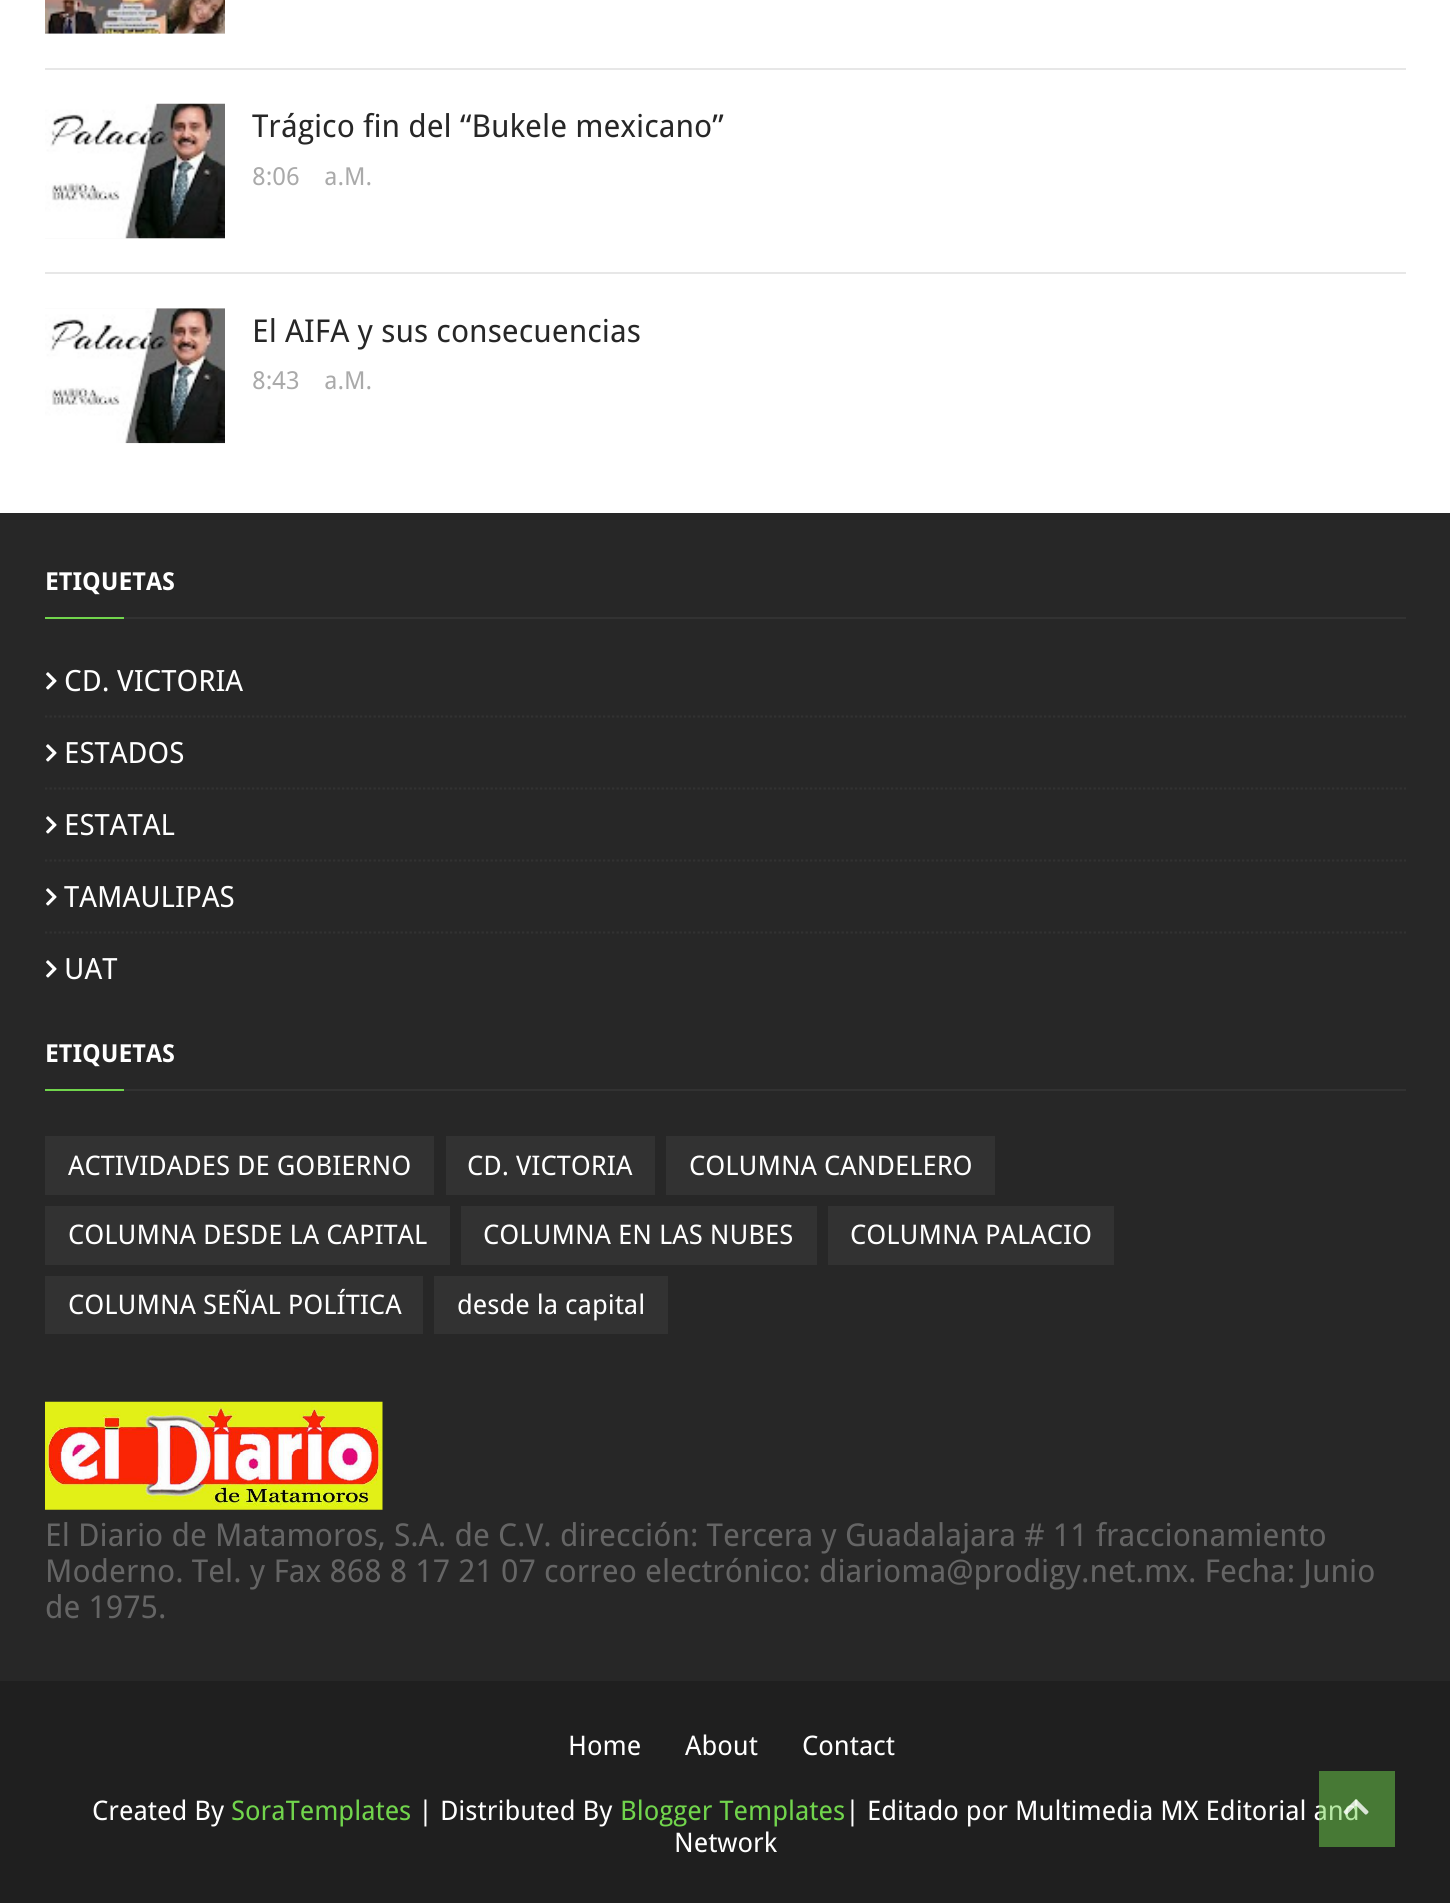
#include <cairo.h>
#include <math.h>
#include <stddef.h>


static void set_color(cairo_t *cr, unsigned color) {
    cairo_set_source_rgb(cr, (color >> 16) / 255.0, (color >> 8 & 255) / 255.0, (color & 255) / 255.0);
}

static void draw_text(cairo_t *cr, double x, double y, const char *s, const char *family, double size, int italic, int bold, unsigned color) {
    cairo_select_font_face(cr, family, italic ? CAIRO_FONT_SLANT_ITALIC : CAIRO_FONT_SLANT_NORMAL,
        bold ? CAIRO_FONT_WEIGHT_BOLD : CAIRO_FONT_WEIGHT_NORMAL);
    cairo_set_font_size(cr, size);
    set_color(cr, color);
    cairo_move_to(cr, x, y);
    cairo_show_text(cr, s);
}

static void fill_rect(cairo_t *cr, double x, double y, double w, double h, unsigned color) {
    set_color(cr, color);
    cairo_rectangle(cr, x, y, w, h);
    cairo_fill(cr);
}

static void draw_image(cairo_t *cr, const char *path, double x, double y, double w, double h) {
    cairo_surface_t *image = cairo_image_surface_create_from_png(path);
    cairo_save(cr);
    cairo_set_source_surface(cr, image, x, y);
    cairo_rectangle(cr, x, y, w, h);
    cairo_fill(cr);
    cairo_restore(cr);
    cairo_surface_destroy(image);
}

int main(void) {
    cairo_surface_t *surface = cairo_image_surface_create(CAIRO_FORMAT_RGB24, 1450, 1903);
    cairo_t *cr = cairo_create(surface);
    cairo_font_options_t *options = cairo_font_options_create();
    cairo_font_options_set_hint_metrics(options, CAIRO_HINT_METRICS_OFF);
    cairo_font_options_set_hint_style(options, CAIRO_HINT_STYLE_NONE);
    cairo_set_font_options(cr, options);
    cairo_set_miter_limit(cr, 4);
    set_color(cr, 0xFFFFFF);
    cairo_paint(cr);
    fill_rect(cr, 45, 33, 180, 1, 0xF9F9F9);
    draw_image(cr, "assets/img1.png", 45, 0, 180, 34);
    fill_rect(cr, 45, 68, 1361, 2, 0xE7E7E7);
    fill_rect(cr, 45, 238, 180, 1, 0xF9F9F9);
    draw_image(cr, "assets/img2.png", 45, 103, 180, 136);
    draw_text(cr, 252, 137, "Trágico fin del “Bukele mexicano”", "Droid Sans", 31.5, 0, 0, 0x272727);
    draw_text(cr, 252, 185, "8:06 a.M.", "Droid Sans", 24.75, 0, 0, 0xAAAAAA);
    fill_rect(cr, 45, 272, 1361, 2, 0xE7E7E7);
    fill_rect(cr, 45, 308, 180, 1, 0xF9F9F9);
    draw_image(cr, "assets/img3.png", 45, 308, 180, 136);
    draw_text(cr, 252, 342, "El AIFA y sus consecuencias", "Droid Sans", 31.5, 0, 0, 0x272727);
    draw_text(cr, 252, 389, "8:43 a.M.", "Droid Sans", 24.75, 0, 0, 0xAAAAAA);
    fill_rect(cr, 0, 513, 1450, 1168, 0x272727);
    fill_rect(cr, 124, 617, 1282, 2, 0x323232);
    draw_text(cr, 45, 590, "ETIQUETAS", "Droid Sans", 24.75, 0, 1, 0xFFFFFF);
    fill_rect(cr, 45, 617, 79, 2, 0x71D54C);
    draw_image(cr, "assets/img4.png", 46, 672, 11, 18);
    draw_text(cr, 64, 691, "CD. VICTORIA", "Droid Sans", 29.25, 0, 0, 0xFFFFFF);
    cairo_new_path(cr);
    cairo_move_to(cr, 45, 716.5);
    cairo_line_to(cr, 1406, 716.5);
    set_color(cr, 0x323232);
    cairo_set_line_width(cr, 2.2);
    cairo_set_dash(cr, (double[]){2.25, 2.25}, 2, 0);
    cairo_stroke(cr);
    draw_image(cr, "assets/img4.png", 46, 744, 11, 18);
    draw_text(cr, 64, 763, "ESTADOS", "Droid Sans", 29.25, 0, 0, 0xFFFFFF);
    cairo_new_path(cr);
    cairo_move_to(cr, 45, 788.5);
    cairo_line_to(cr, 1406, 788.5);
    set_color(cr, 0x323232);
    cairo_stroke(cr);
    draw_image(cr, "assets/img4.png", 46, 816, 11, 18);
    draw_text(cr, 64, 835, "ESTATAL", "Droid Sans", 29.25, 0, 0, 0xFFFFFF);
    cairo_new_path(cr);
    cairo_move_to(cr, 45, 860.5);
    cairo_line_to(cr, 1406, 860.5);
    set_color(cr, 0x323232);
    cairo_stroke(cr);
    draw_image(cr, "assets/img4.png", 46, 888, 11, 18);
    draw_text(cr, 64, 907, "TAMAULIPAS", "Droid Sans", 29.25, 0, 0, 0xFFFFFF);
    cairo_new_path(cr);
    cairo_move_to(cr, 45, 932.5);
    cairo_line_to(cr, 1406, 932.5);
    set_color(cr, 0x323232);
    cairo_stroke(cr);
    draw_image(cr, "assets/img4.png", 46, 960, 11, 18);
    draw_text(cr, 64, 979, "UAT", "Droid Sans", 29.25, 0, 0, 0xFFFFFF);
    fill_rect(cr, 124, 1089, 1282, 2, 0x323232);
    draw_text(cr, 45, 1062, "ETIQUETAS", "Droid Sans", 24.75, 0, 1, 0xFFFFFF);
    fill_rect(cr, 45, 1089, 79, 2, 0x71D54C);
    fill_rect(cr, 45, 1136, 389, 59, 0x323232);
    draw_text(cr, 68, 1175, "ACTIVIDADES DE GOBIERNO", "Droid Sans", 27, 0, 0, 0xFFFFFF);
    fill_rect(cr, 446, 1136, 209, 59, 0x323232);
    draw_text(cr, 467, 1175, "CD. VICTORIA", "Droid Sans", 27, 0, 0, 0xFFFFFF);
    fill_rect(cr, 666, 1136, 329, 59, 0x323232);
    draw_text(cr, 689, 1175, "COLUMNA CANDELERO", "Droid Sans", 27, 0, 0, 0xFFFFFF);
    fill_rect(cr, 45, 1206, 405, 59, 0x323232);
    draw_text(cr, 68, 1244, "COLUMNA DESDE LA CAPITAL", "Droid Sans", 27, 0, 0, 0xFFFFFF);
    fill_rect(cr, 461, 1206, 356, 59, 0x323232);
    draw_text(cr, 483, 1244, "COLUMNA EN LAS NUBES", "Droid Sans", 27, 0, 0, 0xFFFFFF);
    fill_rect(cr, 828, 1206, 286, 59, 0x323232);
    draw_text(cr, 850, 1244, "COLUMNA PALACIO", "Droid Sans", 27, 0, 0, 0xFFFFFF);
    fill_rect(cr, 45, 1276, 378, 58, 0x323232);
    draw_text(cr, 68, 1314, "COLUMNA SEÑAL POLÍTICA", "Droid Sans", 27, 0, 0, 0xFFFFFF);
    fill_rect(cr, 434, 1276, 234, 58, 0x323232);
    draw_text(cr, 457, 1314, "desde la capital", "Droid Sans", 27, 0, 0, 0xFFFFFF);
    draw_image(cr, "assets/img5.png", 45, 1401, 338, 109);
    draw_text(cr, 45, 1546, "El Diario de Matamoros, S.A. de C.V. dirección: Tercera y Guadalajara # 11 fraccionamiento", "Droid Sans", 31.5, 0, 0, 0x656565);
    draw_text(cr, 45, 1582, "Moderno. Tel. y Fax 868 8 17 21 07 correo electrónico: diarioma@prodigy.net.mx. Fecha: Junio", "Droid Sans", 31.5, 0, 0, 0x656565);
    draw_text(cr, 45, 1618, "de 1975.", "Droid Sans", 31.5, 0, 0, 0x656565);
    fill_rect(cr, 0, 1681, 1450, 222, 0x1F1F1F);
    draw_text(cr, 568, 1755, "Home", "Droid Sans", 27, 0, 0, 0xFFFFFF);
    draw_text(cr, 685, 1755, "About", "Droid Sans", 27, 0, 0, 0xFFFFFF);
    draw_text(cr, 802, 1755, "Contact", "Droid Sans", 27, 0, 0, 0xFFFFFF);
    draw_text(cr, 92, 1820, "Created By", "Droid Sans", 27, 0, 0, 0xFFFFFF);
    draw_text(cr, 231, 1820, "SoraTemplates", "Droid Sans", 27, 0, 0, 0x71D54C);
    draw_text(cr, 418, 1820, "| Distributed By", "Droid Sans", 27, 0, 0, 0xFFFFFF);
    draw_text(cr, 620, 1820, "Blogger Templates", "Droid Sans", 27, 0, 0, 0x71D54C);
    draw_text(cr, 845, 1820, "| Editado por Multimedia MX Editorial and", "Droid Sans", 27, 0, 0, 0xFFFFFF);
    draw_text(cr, 674, 1852, "Network", "Droid Sans", 27, 0, 0, 0xFFFFFF);
    cairo_set_source_rgba(cr, 0.443, 0.835, 0.298, 0.5);
    cairo_rectangle(cr, 1319, 1771, 76, 76);
    cairo_fill(cr);
    draw_image(cr, "assets/img6.png", 1343, 1799, 26, 16);
    cairo_surface_write_to_png(surface, "output.png");
    cairo_font_options_destroy(options);
    cairo_destroy(cr);
    cairo_surface_destroy(surface);
    return 0;
}
